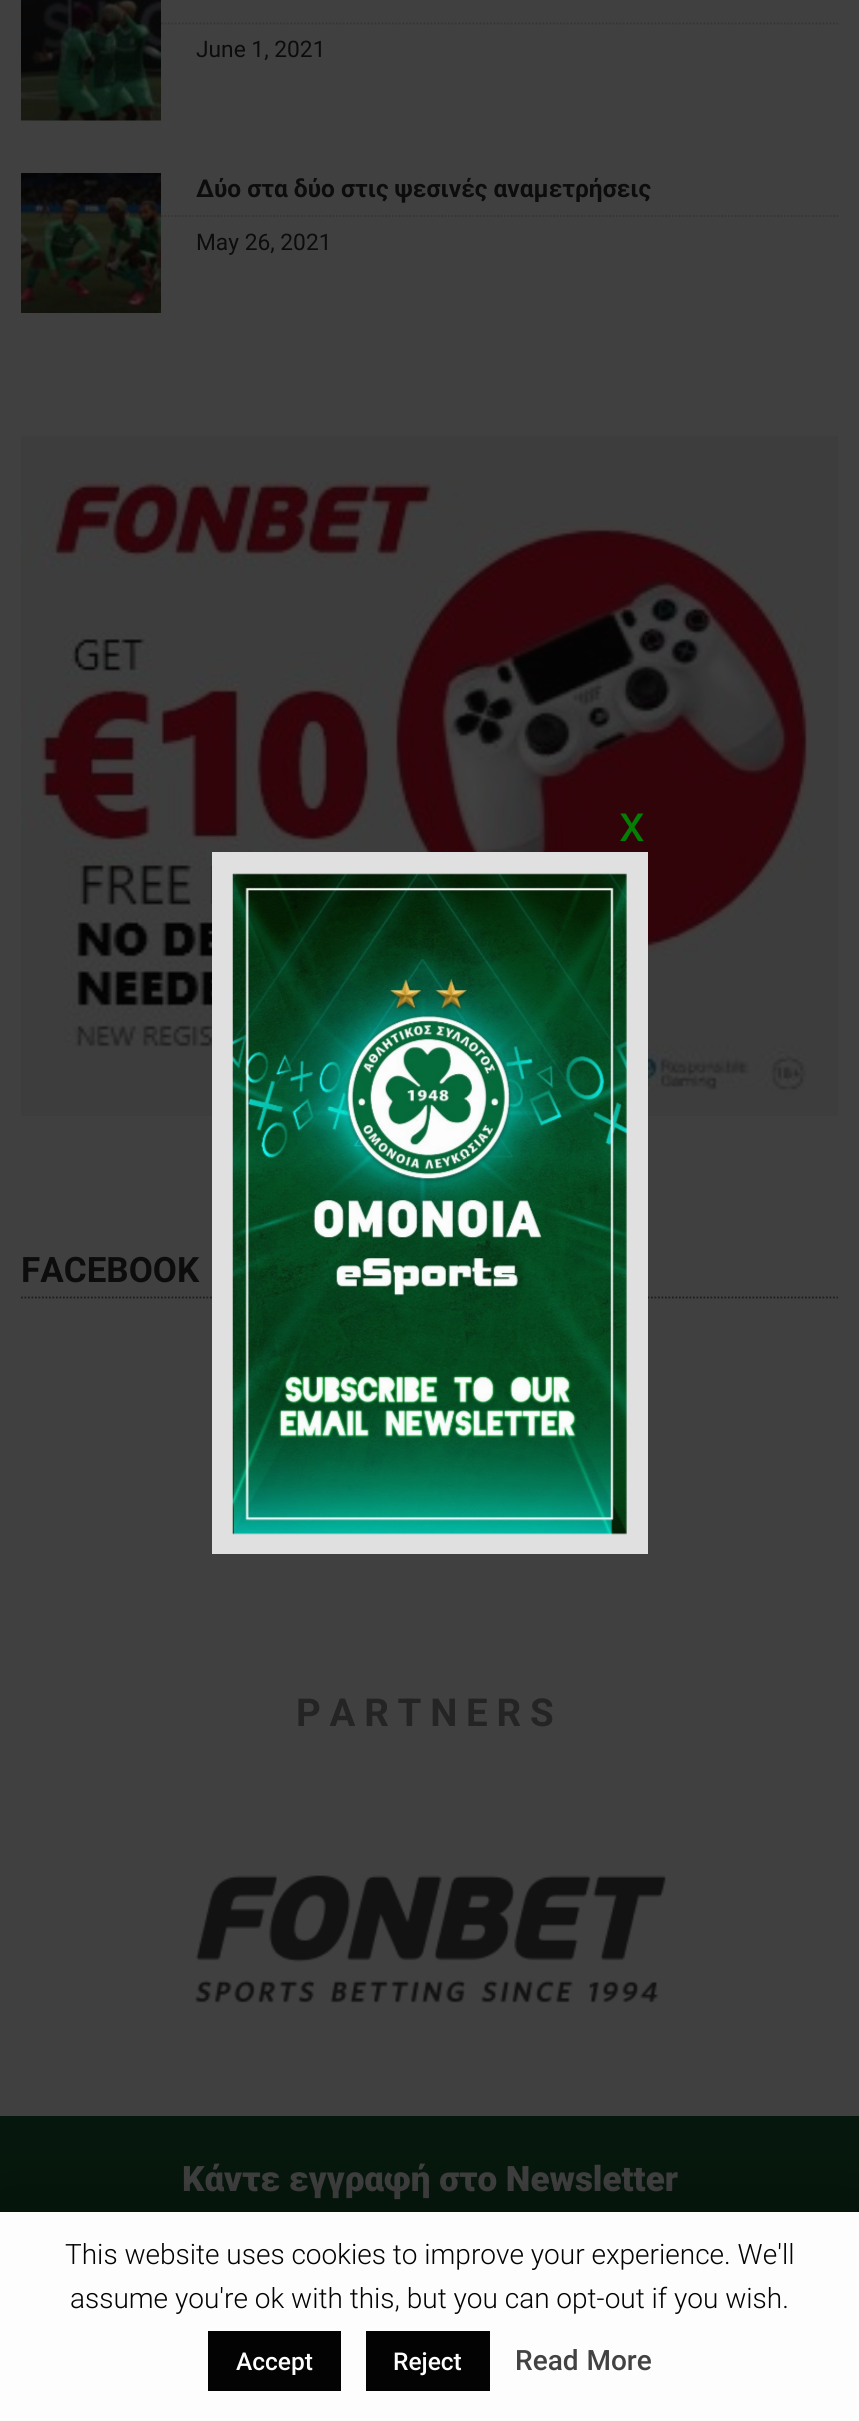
#include <cairo.h>
#include <math.h>
#include <stddef.h>


static void set_color(cairo_t *cr, unsigned color) {
    cairo_set_source_rgb(cr, (color >> 16) / 255.0, (color >> 8 & 255) / 255.0, (color & 255) / 255.0);
}

static void draw_text(cairo_t *cr, double x, double y, const char *s, const char *family, double size, int italic, int bold, unsigned color) {
    cairo_select_font_face(cr, family, italic ? CAIRO_FONT_SLANT_ITALIC : CAIRO_FONT_SLANT_NORMAL,
        bold ? CAIRO_FONT_WEIGHT_BOLD : CAIRO_FONT_WEIGHT_NORMAL);
    cairo_set_font_size(cr, size);
    set_color(cr, color);
    cairo_move_to(cr, x, y);
    cairo_show_text(cr, s);
}

static void draw_spaced(cairo_t *cr, double x, double y, const char *s, double letter, double word) {
    cairo_move_to(cr, x, y);
    while (*s) {
        char ch[5] = {0};
        int n = 0;
        do ch[n++] = *s++; while ((*s & 0xC0) == 0x80);
        cairo_show_text(cr, ch);
        cairo_rel_move_to(cr, letter + word * (*ch == ' '), 0);
    }
}

static void fill_rect(cairo_t *cr, double x, double y, double w, double h, unsigned color) {
    set_color(cr, color);
    cairo_rectangle(cr, x, y, w, h);
    cairo_fill(cr);
}

static void rounded_rect(cairo_t *cr, double x, double y, double w, double h, double r) {
    cairo_new_sub_path(cr);
    cairo_arc(cr, x + w - r, y + h - r, r, 0, M_PI / 2);
    cairo_arc(cr, x + r, y + h - r, r, M_PI / 2, M_PI);
    cairo_arc(cr, x + r, y + r, r, M_PI, 1.5 * M_PI);
    cairo_arc(cr, x + w - r, y + r, r, 1.5 * M_PI, 2 * M_PI);
    cairo_close_path(cr);
}

static void draw_shadow(cairo_t *cr, double x, double y, double w, double h, double r, double blur, double alpha) {
    cairo_push_group_with_content(cr, CAIRO_CONTENT_ALPHA);
    cairo_set_operator(cr, CAIRO_OPERATOR_SOURCE);
    for (int i = 15; i >= -15 && fmin(w, h) + blur * i / 3 > 0; i -= 2) {
        double e = blur * i / 6;
        cairo_set_source_rgba(cr, 0, 0, 0, alpha * erfc((i - 1) / 8.5) / 2);
        rounded_rect(cr, x - e, y - e, w + 2 * e, h + 2 * e, fmax(0, fmin(r + e + blur * .6, fmin(w, h) / 2 + e)));
        cairo_fill(cr);
    }
    cairo_pattern_t *soft = cairo_pop_group(cr);
    cairo_mask(cr, soft);
    cairo_pattern_destroy(soft);
}

static void draw_image(cairo_t *cr, const char *path, double x, double y, double w, double h) {
    cairo_surface_t *image = cairo_image_surface_create_from_png(path);
    cairo_save(cr);
    cairo_set_source_surface(cr, image, x, y);
    cairo_rectangle(cr, x, y, w, h);
    cairo_fill(cr);
    cairo_restore(cr);
    cairo_surface_destroy(image);
}

int main(void) {
    cairo_surface_t *surface = cairo_image_surface_create(CAIRO_FORMAT_RGB24, 859, 2421);
    cairo_t *cr = cairo_create(surface);
    cairo_font_options_t *options = cairo_font_options_create();
    cairo_font_options_set_hint_metrics(options, CAIRO_HINT_METRICS_OFF);
    cairo_font_options_set_hint_style(options, CAIRO_HINT_STYLE_NONE);
    cairo_set_font_options(cr, options);
    cairo_set_miter_limit(cr, 4);
    set_color(cr, 0x404040);
    cairo_paint(cr);
    draw_image(cr, "assets/img1.png", 21, 0, 140, 121);
    cairo_new_path(cr);
    cairo_move_to(cr, 161, 23.5);
    cairo_line_to(cr, 838, 23.5);
    set_color(cr, 0x353535);
    cairo_set_line_width(cr, 1.8);
    cairo_set_dash(cr, (double[]){1.75, 1.75}, 2, 0);
    cairo_stroke(cr);
    draw_text(cr, 196, 57, "June 1, 2021", "Roboto", 22.75, 0, 0, 0x0C0C0D);
    draw_image(cr, "assets/img2.png", 21, 173, 140, 140);
    draw_text(cr, 196, 197, "Δύο στα δύο στις ψεσινές αναμετρήσεις", "Roboto", 24.5, 0, 1, 0x0C0C0D);
    cairo_new_path(cr);
    cairo_move_to(cr, 161, 216);
    cairo_line_to(cr, 838, 216);
    set_color(cr, 0x353535);
    cairo_stroke(cr);
    draw_text(cr, 196, 250, "May 26, 2021", "Roboto", 22.75, 0, 0, 0x0C0C0D);
    draw_image(cr, "assets/img3.png", 21, 435, 817, 681);
    cairo_new_path(cr);
    cairo_move_to(cr, 21, 1297.5);
    cairo_line_to(cr, 838, 1297.5);
    set_color(cr, 0x1D1D1D);
    cairo_stroke(cr);
    draw_text(cr, 21, 1282, "FACEBOOK", "Roboto", 35, 0, 1, 0x0C0C0D);
    cairo_set_font_size(cr, 38.5);
    set_color(cr, 0x242424);
    draw_spaced(cr, 296, 1726, "PARTNERS", 8.75, 0);
    draw_image(cr, "assets/img4.png", 195, 1875, 471, 128);
    fill_rect(cr, 0, 2116, 859, 96, 0x06180D);
    draw_text(cr, 182, 2191, "Kάντε εγγραφή στο Newsletter", "Roboto Black", 35, 0, 0, 0x424242);
    draw_text(cr, 619, 841, "x", "Roboto", 52, 0, 0, 0x038003);
    fill_rect(cr, 212, 852, 436, 702, 0xE0E0E0);
    draw_image(cr, "assets/img5.png", 232, 873, 395, 662);
    set_color(cr, 0x030303);
    draw_shadow(cr, 0, 2221, 859, 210, 0, 44, 0.5);
    fill_rect(cr, 0, 2212, 859, 209, 0xFDFDFD);
    draw_text(cr, 65, 2264, "This website uses cookies to improve your experience. We'll", "Roboto Light", 28, 0, 0, 0x030303);
    draw_text(cr, 70, 2308, "assume you're ok with this, but you can opt-out if you wish.", "Roboto Light", 28, 0, 0, 0x030303);
    fill_rect(cr, 208, 2331, 133, 60, 0x030303);
    draw_text(cr, 236, 2370, "Accept", "Roboto Medium", 24.5, 0, 0, 0xFDFDFD);
    fill_rect(cr, 366, 2331, 124, 60, 0x030303);
    draw_text(cr, 393, 2370, "Reject", "Roboto Medium", 24.5, 0, 0, 0xFDFDFD);
    cairo_set_font_size(cr, 28);
    set_color(cr, 0x424242);
    draw_spaced(cr, 515, 2370, "Read More", 0, 1);
    cairo_surface_write_to_png(surface, "output.png");
    cairo_font_options_destroy(options);
    cairo_destroy(cr);
    cairo_surface_destroy(surface);
    return 0;
}
